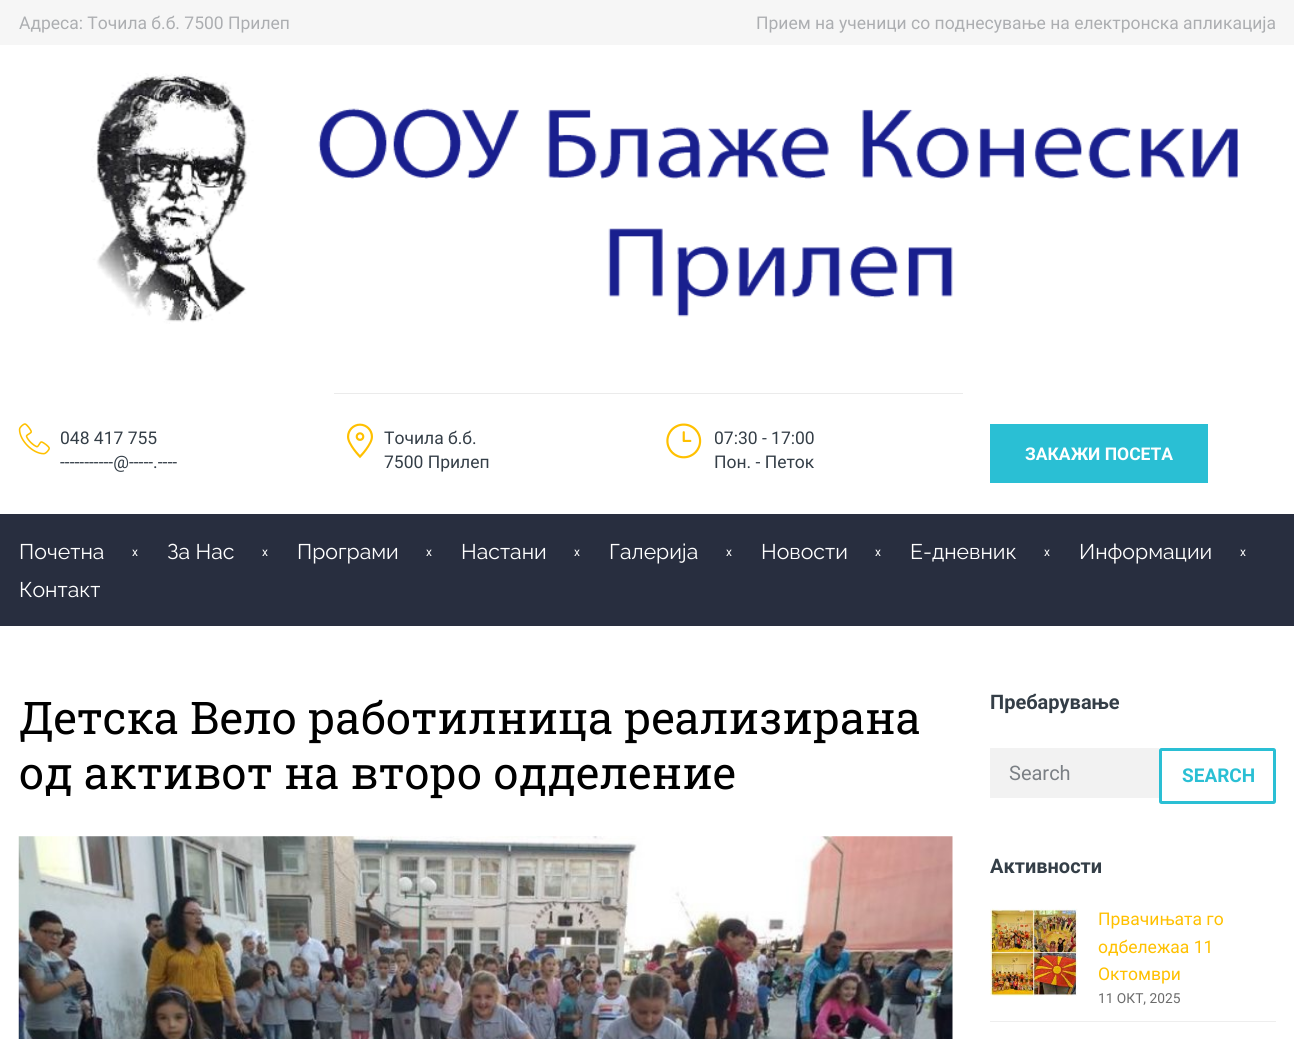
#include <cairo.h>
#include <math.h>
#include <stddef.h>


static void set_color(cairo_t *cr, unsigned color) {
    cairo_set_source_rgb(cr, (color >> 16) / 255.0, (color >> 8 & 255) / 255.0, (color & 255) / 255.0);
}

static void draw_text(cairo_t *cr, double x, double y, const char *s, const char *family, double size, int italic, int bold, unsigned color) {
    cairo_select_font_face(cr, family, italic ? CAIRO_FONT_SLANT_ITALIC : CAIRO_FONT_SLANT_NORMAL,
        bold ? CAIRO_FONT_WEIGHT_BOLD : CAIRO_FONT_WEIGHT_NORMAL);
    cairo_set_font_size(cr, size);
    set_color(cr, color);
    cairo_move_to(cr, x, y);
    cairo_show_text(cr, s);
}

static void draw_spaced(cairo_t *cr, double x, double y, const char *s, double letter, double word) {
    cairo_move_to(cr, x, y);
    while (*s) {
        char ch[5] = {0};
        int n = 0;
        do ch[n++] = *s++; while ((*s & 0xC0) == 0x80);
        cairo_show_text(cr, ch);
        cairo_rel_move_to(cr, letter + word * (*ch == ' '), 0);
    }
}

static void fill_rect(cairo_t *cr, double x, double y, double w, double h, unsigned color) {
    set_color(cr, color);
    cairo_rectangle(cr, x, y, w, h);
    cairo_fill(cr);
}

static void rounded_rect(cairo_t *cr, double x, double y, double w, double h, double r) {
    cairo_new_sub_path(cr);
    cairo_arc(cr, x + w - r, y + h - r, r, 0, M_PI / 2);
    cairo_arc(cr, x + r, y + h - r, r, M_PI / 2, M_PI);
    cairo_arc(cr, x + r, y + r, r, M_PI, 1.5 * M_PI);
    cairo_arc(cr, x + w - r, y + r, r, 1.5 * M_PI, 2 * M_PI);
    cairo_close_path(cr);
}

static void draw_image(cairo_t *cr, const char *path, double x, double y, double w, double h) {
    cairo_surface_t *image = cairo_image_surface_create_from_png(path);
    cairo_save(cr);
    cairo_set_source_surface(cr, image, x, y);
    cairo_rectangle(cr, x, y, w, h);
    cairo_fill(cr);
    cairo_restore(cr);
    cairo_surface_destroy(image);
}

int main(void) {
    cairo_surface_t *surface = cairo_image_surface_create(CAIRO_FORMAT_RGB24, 1294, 1039);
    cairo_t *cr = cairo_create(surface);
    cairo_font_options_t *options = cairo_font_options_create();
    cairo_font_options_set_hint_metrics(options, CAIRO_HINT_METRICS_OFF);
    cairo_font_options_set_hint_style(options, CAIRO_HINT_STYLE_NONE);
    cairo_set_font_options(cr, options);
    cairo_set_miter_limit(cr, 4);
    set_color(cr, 0xFFFFFF);
    cairo_paint(cr);
    fill_rect(cr, 0, 0, 1294, 45, 0xF6F6F6);
    draw_text(cr, 19, 29, "Адреса: Точила б.б. 7500 Прилеп", "Roboto", 17.5, 0, 0, 0xACAEB1);
    draw_text(cr, 756, 29, "Прием на ученици со поднесување на електронска апликација", "Roboto", 17.5, 0, 0, 0xACAEB1);
    draw_image(cr, "assets/img1.png", 91, 73, 1147, 251);
    fill_rect(cr, 334, 393, 629, 1, 0xEBEBEB);
    draw_image(cr, "assets/img2.png", 18, 423, 32, 32);
    draw_text(cr, 60, 444, "048 417 755", "Roboto", 17.5, 0, 0, 0x343E47);
    draw_text(cr, 60, 468, "-----------@-----.----", "Roboto", 17.5, 0, 0, 0x343E47);
    draw_image(cr, "assets/img3.png", 347, 423, 26, 36);
    draw_text(cr, 384, 444, "Точила б.б.", "Roboto", 17.5, 0, 0, 0x343E47);
    draw_text(cr, 384, 468, "7500 Прилеп", "Roboto", 17.5, 0, 0, 0x343E47);
    draw_image(cr, "assets/img4.png", 666, 423, 36, 36);
    draw_text(cr, 714, 444, "07:30 - 17:00", "Roboto", 17.5, 0, 0, 0x343E47);
    draw_text(cr, 714, 468, "Пон. - Петок", "Roboto", 17.5, 0, 0, 0x343E47);
    fill_rect(cr, 990, 424, 218, 59, 0x2ABFD4);
    draw_text(cr, 1025, 460, "ЗАКАЖИ ПОСЕТА", "Roboto", 17.5, 0, 1, 0xFFFFFF);
    fill_rect(cr, 0, 514, 1294, 112, 0x282E3F);
    draw_text(cr, 19, 559, "Почетна", "Raleway", 21.25, 0, 0, 0xFFFFFF);
    cairo_select_font_face(cr, "Roboto", CAIRO_FONT_SLANT_NORMAL, CAIRO_FONT_WEIGHT_NORMAL);
    cairo_set_font_size(cr, 12);
    draw_spaced(cr, 132, 556, "x", 1, 0);
    draw_text(cr, 167, 559, "За Нас", "Raleway", 21.25, 0, 0, 0xFFFFFF);
    cairo_select_font_face(cr, "Roboto", CAIRO_FONT_SLANT_NORMAL, CAIRO_FONT_WEIGHT_NORMAL);
    cairo_set_font_size(cr, 12);
    draw_spaced(cr, 262, 556, "x", 1, 0);
    draw_text(cr, 297, 559, "Програми", "Raleway", 21.25, 0, 0, 0xFFFFFF);
    cairo_select_font_face(cr, "Roboto", CAIRO_FONT_SLANT_NORMAL, CAIRO_FONT_WEIGHT_NORMAL);
    cairo_set_font_size(cr, 12);
    draw_spaced(cr, 426, 556, "x", 1, 0);
    draw_text(cr, 461, 559, "Настани", "Raleway", 21.25, 0, 0, 0xFFFFFF);
    cairo_select_font_face(cr, "Roboto", CAIRO_FONT_SLANT_NORMAL, CAIRO_FONT_WEIGHT_NORMAL);
    cairo_set_font_size(cr, 12);
    draw_spaced(cr, 574, 556, "x", 1, 0);
    draw_text(cr, 609, 559, "Галерија", "Raleway", 21.25, 0, 0, 0xFFFFFF);
    cairo_select_font_face(cr, "Roboto", CAIRO_FONT_SLANT_NORMAL, CAIRO_FONT_WEIGHT_NORMAL);
    cairo_set_font_size(cr, 12);
    draw_spaced(cr, 726, 556, "x", 1, 0);
    draw_text(cr, 761, 559, "Новости", "Raleway", 21.25, 0, 0, 0xFFFFFF);
    cairo_select_font_face(cr, "Roboto", CAIRO_FONT_SLANT_NORMAL, CAIRO_FONT_WEIGHT_NORMAL);
    cairo_set_font_size(cr, 12);
    draw_spaced(cr, 875, 556, "x", 1, 0);
    draw_text(cr, 910, 559, "Е-дневник", "Raleway", 21.25, 0, 0, 0xFFFFFF);
    cairo_select_font_face(cr, "Roboto", CAIRO_FONT_SLANT_NORMAL, CAIRO_FONT_WEIGHT_NORMAL);
    cairo_set_font_size(cr, 12);
    draw_spaced(cr, 1044, 556, "x", 1, 0);
    draw_text(cr, 1079, 559, "Информации", "Raleway", 21.25, 0, 0, 0xFFFFFF);
    cairo_select_font_face(cr, "Roboto", CAIRO_FONT_SLANT_NORMAL, CAIRO_FONT_WEIGHT_NORMAL);
    cairo_set_font_size(cr, 12);
    draw_spaced(cr, 1240, 556, "x", 1, 0);
    draw_text(cr, 19, 597, "Контакт", "Raleway", 21.25, 0, 0, 0xFFFFFF);
    draw_text(cr, 19, 734, "Детска Вело работилница реализирана", "Roboto Slab", 45, 0, 0, 0x000000);
    draw_text(cr, 19, 789, "од активот на второ одделение", "Roboto Slab", 45, 0, 0, 0x000000);
    draw_image(cr, "assets/img5.png", 18, 836, 935, 203);
    draw_text(cr, 990, 709, "Пребарување", "Roboto", 20, 0, 1, 0x343E47);
    fill_rect(cr, 990, 748, 169, 50, 0xF2F2F2);
    draw_text(cr, 1009, 780, "Search", "Roboto", 20, 0, 0, 0x7B8085);
    rounded_rect(cr, 1160.5, 749.5, 114, 53, 1);
    set_color(cr, 0x2ABFD4);
    cairo_set_line_width(cr, 3);
    cairo_stroke(cr);
    draw_text(cr, 1182, 782, "SEARCH", "Roboto", 19, 0, 1, 0x2ABFD4);
    draw_text(cr, 990, 873, "Активности", "Roboto", 20, 0, 1, 0x343E47);
    fill_rect(cr, 990, 1021, 286, 1, 0xEEEEEE);
    draw_image(cr, "assets/img6.png", 990, 908, 88, 89);
    draw_text(cr, 1098, 925, "Првачињата го", "Roboto", 17.5, 0, 0, 0xFFC000);
    draw_text(cr, 1098, 953, "одбележаа 11", "Roboto", 17.5, 0, 0, 0xFFC000);
    draw_text(cr, 1098, 980, "Октомври", "Roboto", 17.5, 0, 0, 0xFFC000);
    draw_text(cr, 1098, 1003, "11 ОКТ, 2025", "Roboto", 13.75, 0, 0, 0x6B6B6B);
    cairo_surface_write_to_png(surface, "output.png");
    cairo_font_options_destroy(options);
    cairo_destroy(cr);
    cairo_surface_destroy(surface);
    return 0;
}
